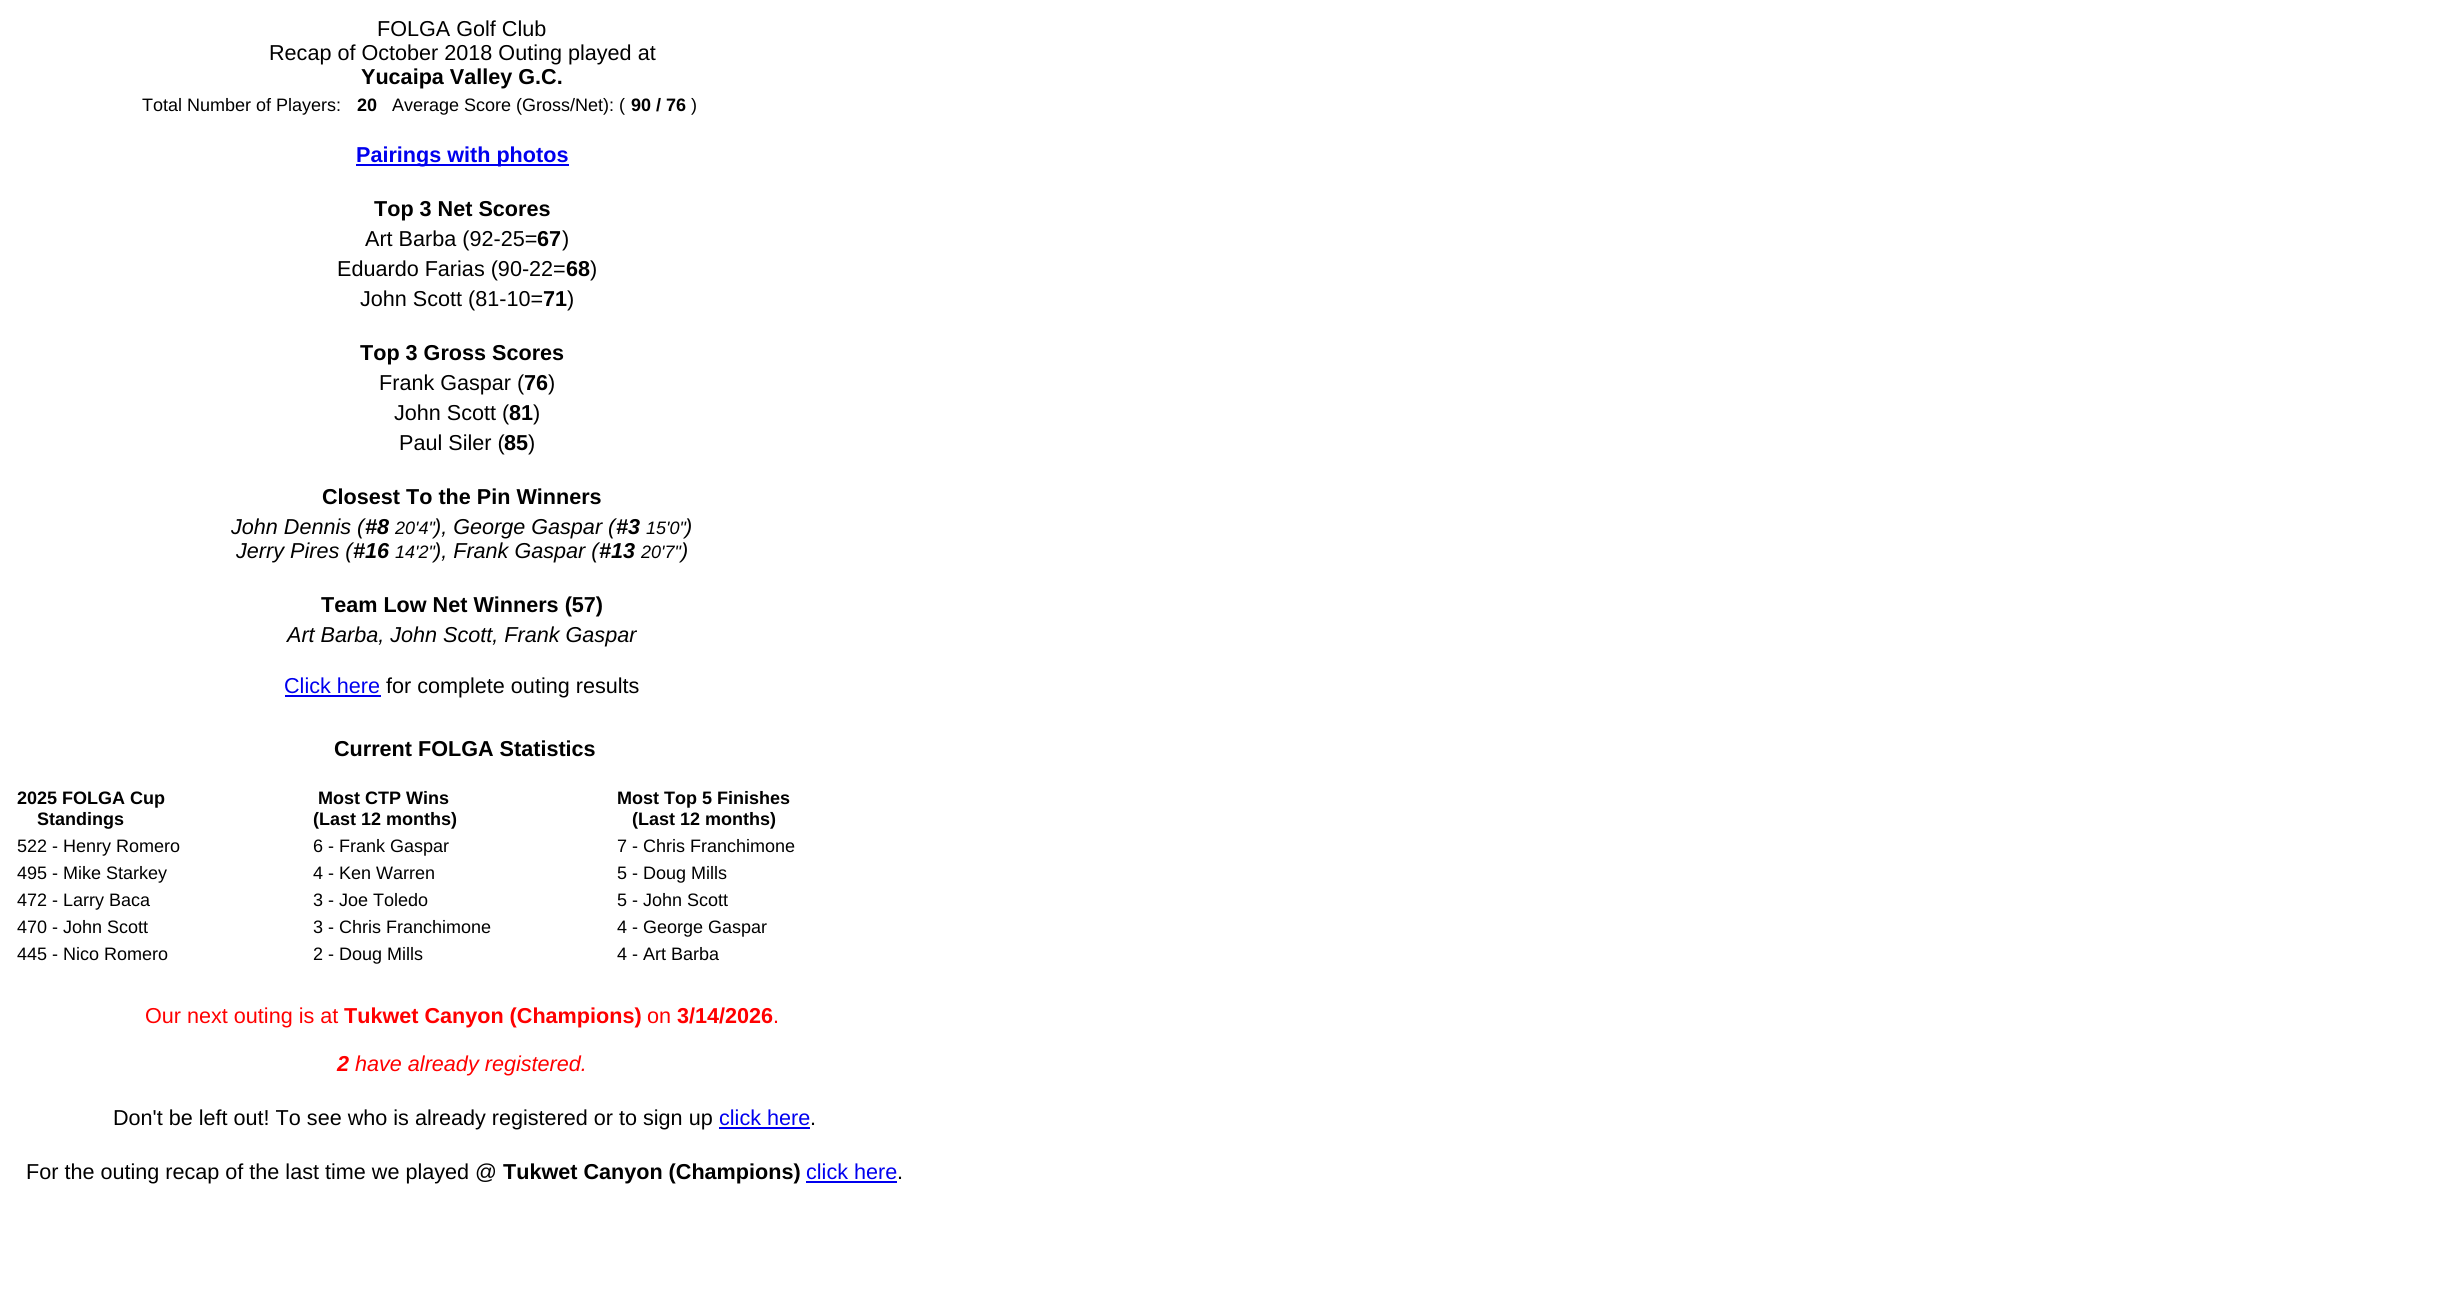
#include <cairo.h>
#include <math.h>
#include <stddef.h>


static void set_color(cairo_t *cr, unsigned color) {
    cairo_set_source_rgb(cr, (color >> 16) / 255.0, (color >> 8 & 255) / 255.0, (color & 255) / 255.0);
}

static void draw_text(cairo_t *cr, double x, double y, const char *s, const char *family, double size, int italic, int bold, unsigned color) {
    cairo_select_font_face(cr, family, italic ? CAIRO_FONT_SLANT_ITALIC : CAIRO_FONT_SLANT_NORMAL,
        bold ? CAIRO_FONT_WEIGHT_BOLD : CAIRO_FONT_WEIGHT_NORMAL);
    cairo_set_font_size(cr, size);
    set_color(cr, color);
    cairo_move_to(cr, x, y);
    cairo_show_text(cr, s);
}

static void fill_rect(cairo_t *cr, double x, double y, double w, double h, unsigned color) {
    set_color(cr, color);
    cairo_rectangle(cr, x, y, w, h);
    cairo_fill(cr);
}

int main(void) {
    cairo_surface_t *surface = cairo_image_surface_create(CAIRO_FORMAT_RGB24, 2451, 1306);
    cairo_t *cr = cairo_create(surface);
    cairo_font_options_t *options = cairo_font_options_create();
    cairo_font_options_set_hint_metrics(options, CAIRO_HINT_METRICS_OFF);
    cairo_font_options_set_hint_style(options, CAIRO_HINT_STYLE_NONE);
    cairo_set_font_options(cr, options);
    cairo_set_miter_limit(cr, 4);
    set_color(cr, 0xFFFFFF);
    cairo_paint(cr);
    draw_text(cr, 377, 36, "FOLGA Golf Club", "Liberation Sans", 21.6, 0, 0, 0x000000);
    draw_text(cr, 269, 60, "Recap of October 2018 Outing played at", "Liberation Sans", 21.6, 0, 0, 0x000000);
    draw_text(cr, 361, 84, "Yucaipa Valley G.C.", "Liberation Sans", 21.6, 0, 1, 0x000000);
    draw_text(cr, 142, 111, "Total Number of Players:", "Liberation Sans", 18, 0, 0, 0x000000);
    draw_text(cr, 357, 111, "20", "Liberation Sans", 18, 0, 1, 0x000000);
    draw_text(cr, 392, 111, "Average Score (Gross/Net): (", "Liberation Sans", 18, 0, 0, 0x000000);
    draw_text(cr, 631, 111, "90 / 76", "Liberation Sans", 18, 0, 1, 0x000000);
    draw_text(cr, 691, 111, ")", "Liberation Sans", 18, 0, 0, 0x000000);
    fill_rect(cr, 356, 164, 213, 2, 0x0000EE);
    draw_text(cr, 356, 162, "Pairings with photos", "Liberation Sans", 21.6, 0, 1, 0x0000EE);
    draw_text(cr, 374, 216, "Top 3 Net Scores", "Liberation Sans", 21.6, 0, 1, 0x000000);
    draw_text(cr, 365, 246, "Art Barba (92-25=", "Liberation Sans", 21.6, 0, 0, 0x000000);
    draw_text(cr, 537, 246, "67", "Liberation Sans", 21.6, 0, 1, 0x000000);
    draw_text(cr, 562, 246, ")", "Liberation Sans", 21.6, 0, 0, 0x000000);
    draw_text(cr, 337, 276, "Eduardo Farias (90-22=", "Liberation Sans", 21.6, 0, 0, 0x000000);
    draw_text(cr, 566, 276, "68", "Liberation Sans", 21.6, 0, 1, 0x000000);
    draw_text(cr, 590, 276, ")", "Liberation Sans", 21.6, 0, 0, 0x000000);
    draw_text(cr, 360, 306, "John Scott (81-10=", "Liberation Sans", 21.6, 0, 0, 0x000000);
    draw_text(cr, 543, 306, "71", "Liberation Sans", 21.6, 0, 1, 0x000000);
    draw_text(cr, 567, 306, ")", "Liberation Sans", 21.6, 0, 0, 0x000000);
    draw_text(cr, 360, 360, "Top 3 Gross Scores", "Liberation Sans", 21.6, 0, 1, 0x000000);
    draw_text(cr, 379, 390, "Frank Gaspar (", "Liberation Sans", 21.6, 0, 0, 0x000000);
    draw_text(cr, 524, 390, "76", "Liberation Sans", 21.6, 0, 1, 0x000000);
    draw_text(cr, 548, 390, ")", "Liberation Sans", 21.6, 0, 0, 0x000000);
    draw_text(cr, 394, 420, "John Scott (", "Liberation Sans", 21.6, 0, 0, 0x000000);
    draw_text(cr, 509, 420, "81", "Liberation Sans", 21.6, 0, 1, 0x000000);
    draw_text(cr, 533, 420, ")", "Liberation Sans", 21.6, 0, 0, 0x000000);
    draw_text(cr, 399, 450, "Paul Siler (", "Liberation Sans", 21.6, 0, 0, 0x000000);
    draw_text(cr, 504, 450, "85", "Liberation Sans", 21.6, 0, 1, 0x000000);
    draw_text(cr, 528, 450, ")", "Liberation Sans", 21.6, 0, 0, 0x000000);
    draw_text(cr, 322, 504, "Closest To the Pin Winners", "Liberation Sans", 21.6, 0, 1, 0x000000);
    draw_text(cr, 231, 534, "John Dennis (", "Liberation Sans", 21.6, 1, 0, 0x000000);
    draw_text(cr, 365, 534, "#8", "Liberation Sans", 21.6, 1, 1, 0x000000);
    draw_text(cr, 395, 534, "20'4\"", "Liberation Sans", 18, 1, 0, 0x000000);
    draw_text(cr, 434, 534, "), George Gaspar (", "Liberation Sans", 21.6, 1, 0, 0x000000);
    draw_text(cr, 616, 534, "#3", "Liberation Sans", 21.6, 1, 1, 0x000000);
    draw_text(cr, 646, 534, "15'0\"", "Liberation Sans", 18, 1, 0, 0x000000);
    draw_text(cr, 685, 534, ")", "Liberation Sans", 21.6, 1, 0, 0x000000);
    draw_text(cr, 236, 558, "Jerry Pires (", "Liberation Sans", 21.6, 1, 0, 0x000000);
    draw_text(cr, 353, 558, "#16", "Liberation Sans", 21.6, 1, 1, 0x000000);
    draw_text(cr, 395, 558, "14'2\"", "Liberation Sans", 18, 1, 0, 0x000000);
    draw_text(cr, 434, 558, "), Frank Gaspar (", "Liberation Sans", 21.6, 1, 0, 0x000000);
    draw_text(cr, 599, 558, "#13", "Liberation Sans", 21.6, 1, 1, 0x000000);
    draw_text(cr, 641, 558, "20'7\"", "Liberation Sans", 18, 1, 0, 0x000000);
    draw_text(cr, 681, 558, ")", "Liberation Sans", 21.6, 1, 0, 0x000000);
    draw_text(cr, 321, 612, "Team Low Net Winners (57)", "Liberation Sans", 21.6, 0, 1, 0x000000);
    draw_text(cr, 287, 642, "Art Barba, John Scott, Frank Gaspar", "Liberation Sans", 21.6, 1, 0, 0x000000);
    draw_text(cr, 284, 693, "Click here", "Liberation Sans", 21.6, 0, 0, 0x0000EE);
    fill_rect(cr, 285, 695, 96, 2, 0x0000EE);
    draw_text(cr, 386, 693, "for complete outing results", "Liberation Sans", 21.6, 0, 0, 0x000000);
    draw_text(cr, 334, 756, "Current FOLGA Statistics", "Liberation Sans", 21.6, 0, 1, 0x000000);
    draw_text(cr, 17, 804, "2025 FOLGA Cup", "Liberation Sans", 18, 0, 1, 0x000000);
    draw_text(cr, 37, 825, "Standings", "Liberation Sans", 18, 0, 1, 0x000000);
    draw_text(cr, 318, 804, "Most CTP Wins", "Liberation Sans", 18, 0, 1, 0x000000);
    draw_text(cr, 313, 825, "(Last 12 months)", "Liberation Sans", 18, 0, 1, 0x000000);
    draw_text(cr, 617, 804, "Most Top 5 Finishes", "Liberation Sans", 18, 0, 1, 0x000000);
    draw_text(cr, 632, 825, "(Last 12 months)", "Liberation Sans", 18, 0, 1, 0x000000);
    draw_text(cr, 17, 852, "522 - Henry Romero", "Liberation Sans", 18, 0, 0, 0x000000);
    draw_text(cr, 313, 852, "6 - Frank Gaspar", "Liberation Sans", 18, 0, 0, 0x000000);
    draw_text(cr, 617, 852, "7 - Chris Franchimone", "Liberation Sans", 18, 0, 0, 0x000000);
    draw_text(cr, 17, 879, "495 - Mike Starkey", "Liberation Sans", 18, 0, 0, 0x000000);
    draw_text(cr, 313, 879, "4 - Ken Warren", "Liberation Sans", 18, 0, 0, 0x000000);
    draw_text(cr, 617, 879, "5 - Doug Mills", "Liberation Sans", 18, 0, 0, 0x000000);
    draw_text(cr, 17, 906, "472 - Larry Baca", "Liberation Sans", 18, 0, 0, 0x000000);
    draw_text(cr, 313, 906, "3 - Joe Toledo", "Liberation Sans", 18, 0, 0, 0x000000);
    draw_text(cr, 617, 906, "5 - John Scott", "Liberation Sans", 18, 0, 0, 0x000000);
    draw_text(cr, 17, 933, "470 - John Scott", "Liberation Sans", 18, 0, 0, 0x000000);
    draw_text(cr, 313, 933, "3 - Chris Franchimone", "Liberation Sans", 18, 0, 0, 0x000000);
    draw_text(cr, 617, 933, "4 - George Gaspar", "Liberation Sans", 18, 0, 0, 0x000000);
    draw_text(cr, 17, 960, "445 - Nico Romero", "Liberation Sans", 18, 0, 0, 0x000000);
    draw_text(cr, 313, 960, "2 - Doug Mills", "Liberation Sans", 18, 0, 0, 0x000000);
    draw_text(cr, 617, 960, "4 - Art Barba", "Liberation Sans", 18, 0, 0, 0x000000);
    draw_text(cr, 145, 1023, "Our next outing is at", "Liberation Sans", 21.6, 0, 0, 0xFF0000);
    draw_text(cr, 344, 1023, "Tukwet Canyon (Champions)", "Liberation Sans", 21.6, 0, 1, 0xFF0000);
    draw_text(cr, 647, 1023, "on", "Liberation Sans", 21.6, 0, 0, 0xFF0000);
    draw_text(cr, 677, 1023, "3/14/2026", "Liberation Sans", 21.6, 0, 1, 0xFF0000);
    draw_text(cr, 773, 1023, ".", "Liberation Sans", 21.6, 0, 0, 0xFF0000);
    draw_text(cr, 337, 1071, "2", "Liberation Sans", 21.6, 1, 1, 0xFF0000);
    draw_text(cr, 355, 1071, "have already registered.", "Liberation Sans", 21.6, 1, 0, 0xFF0000);
    draw_text(cr, 113, 1125, "Don't be left out! To see who is already registered or to sign up", "Liberation Sans", 21.6, 0, 0, 0x000000);
    draw_text(cr, 719, 1125, "click here", "Liberation Sans", 21.6, 0, 0, 0x0000EE);
    draw_text(cr, 810, 1125, ".", "Liberation Sans", 21.6, 0, 0, 0x000000);
    fill_rect(cr, 719, 1127, 91, 2, 0x0000EE);
    draw_text(cr, 26, 1179, "For the outing recap of the last time we played @", "Liberation Sans", 21.6, 0, 0, 0x000000);
    draw_text(cr, 503, 1179, "Tukwet Canyon (Champions)", "Liberation Sans", 21.6, 0, 1, 0x000000);
    draw_text(cr, 806, 1179, "click here", "Liberation Sans", 21.6, 0, 0, 0x0000EE);
    draw_text(cr, 897, 1179, ".", "Liberation Sans", 21.6, 0, 0, 0x000000);
    fill_rect(cr, 806, 1181, 91, 2, 0x0000EE);
    cairo_surface_write_to_png(surface, "output.png");
    cairo_font_options_destroy(options);
    cairo_destroy(cr);
    cairo_surface_destroy(surface);
    return 0;
}
